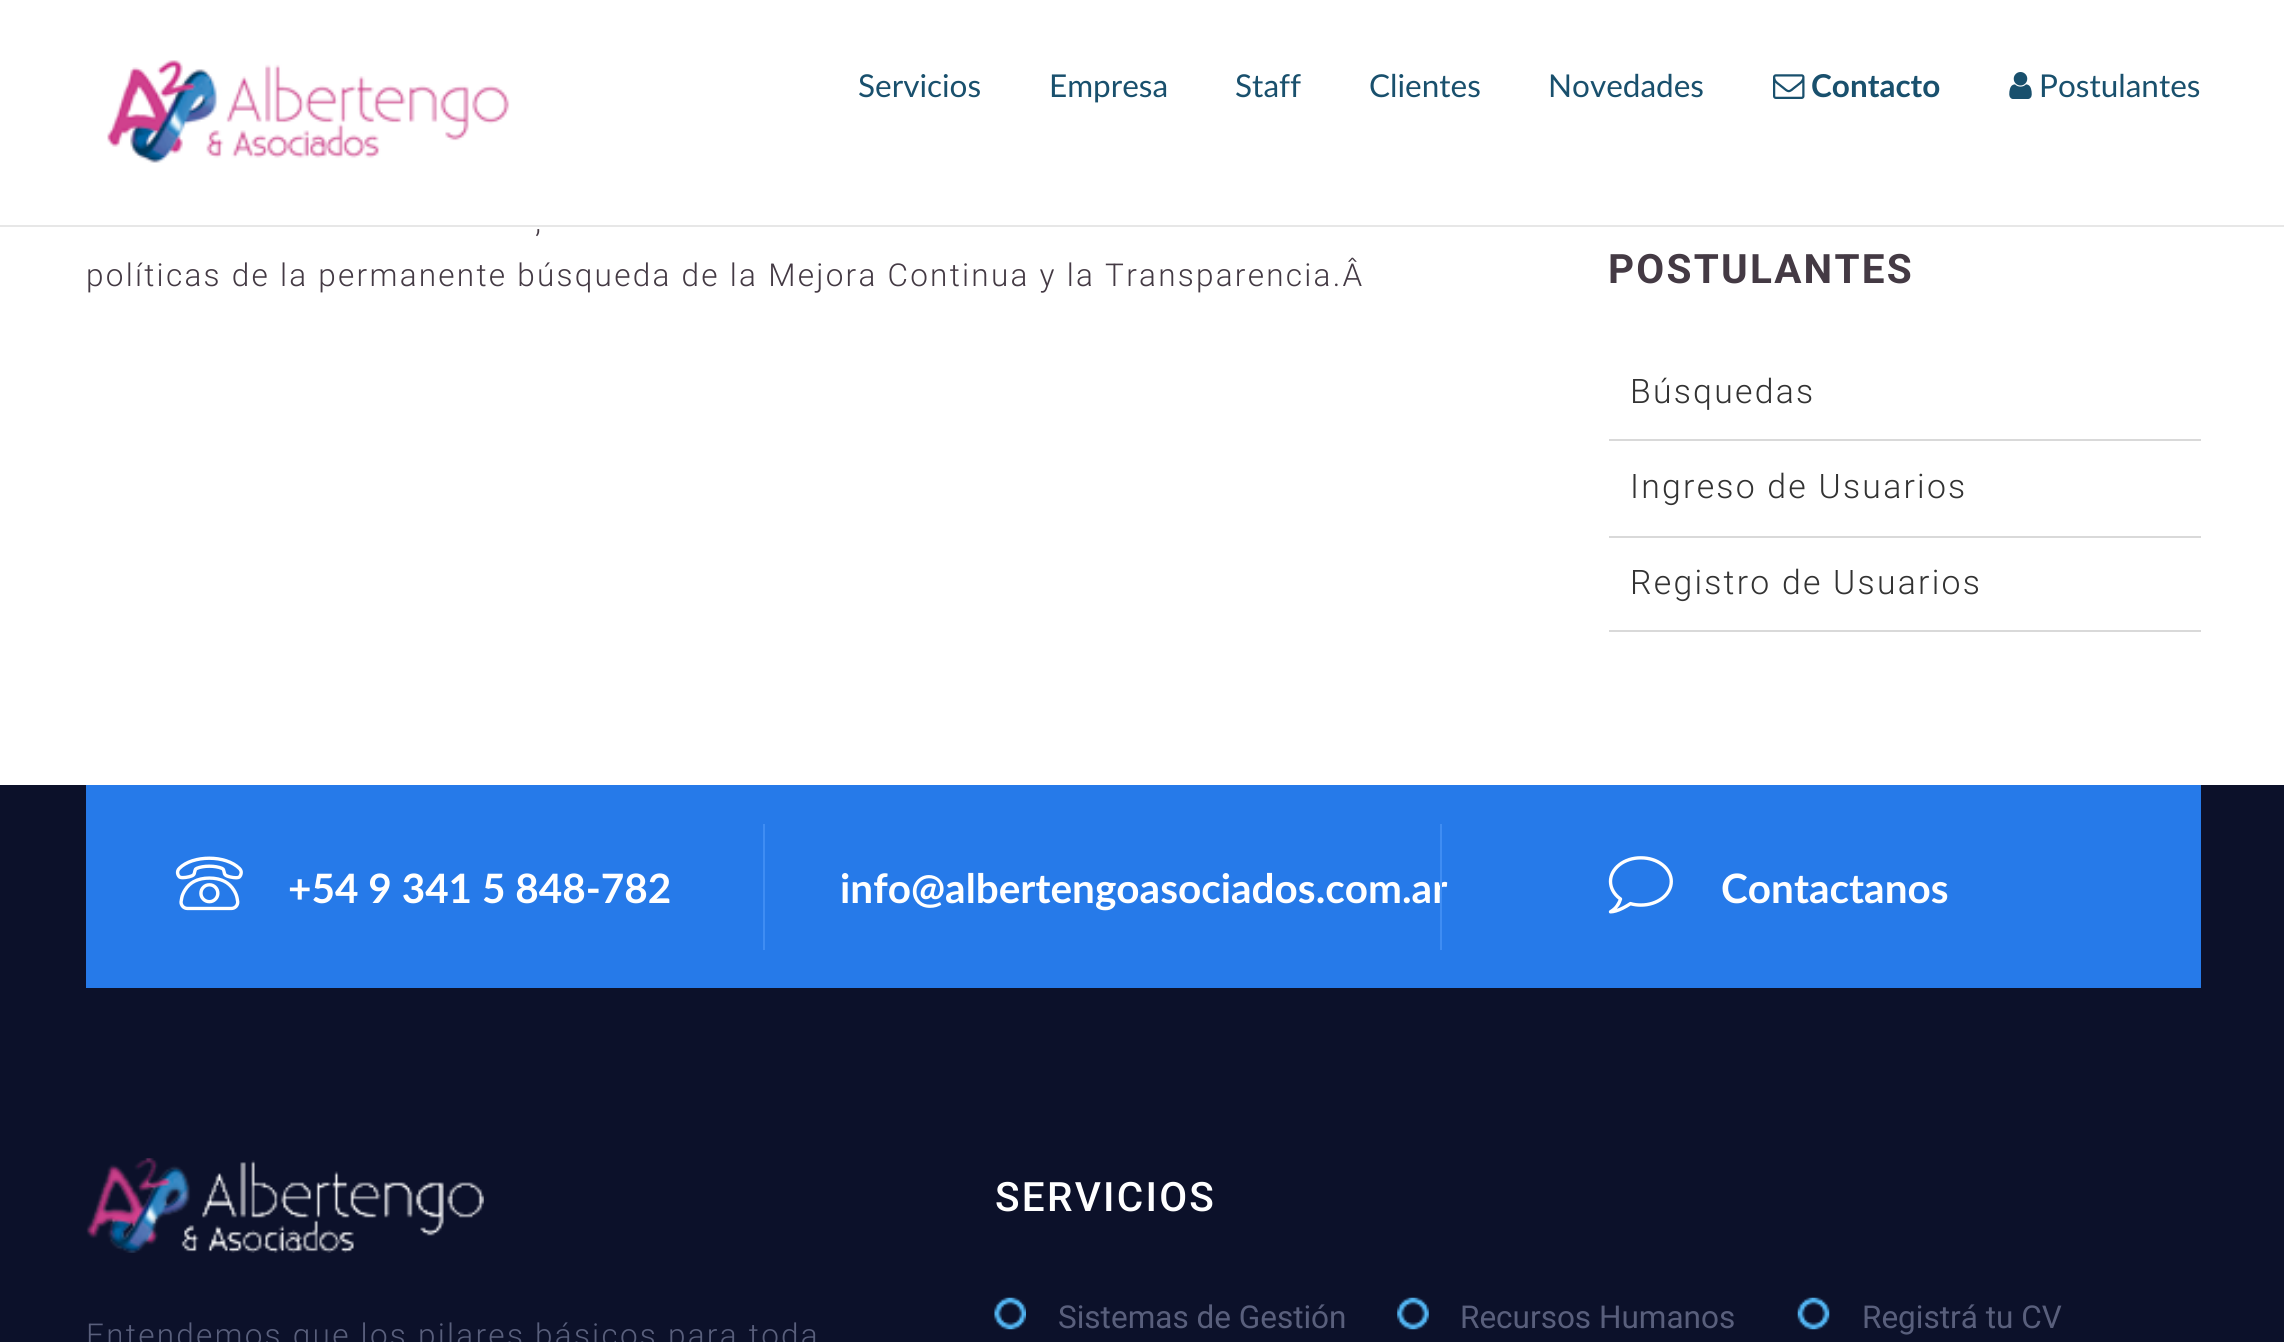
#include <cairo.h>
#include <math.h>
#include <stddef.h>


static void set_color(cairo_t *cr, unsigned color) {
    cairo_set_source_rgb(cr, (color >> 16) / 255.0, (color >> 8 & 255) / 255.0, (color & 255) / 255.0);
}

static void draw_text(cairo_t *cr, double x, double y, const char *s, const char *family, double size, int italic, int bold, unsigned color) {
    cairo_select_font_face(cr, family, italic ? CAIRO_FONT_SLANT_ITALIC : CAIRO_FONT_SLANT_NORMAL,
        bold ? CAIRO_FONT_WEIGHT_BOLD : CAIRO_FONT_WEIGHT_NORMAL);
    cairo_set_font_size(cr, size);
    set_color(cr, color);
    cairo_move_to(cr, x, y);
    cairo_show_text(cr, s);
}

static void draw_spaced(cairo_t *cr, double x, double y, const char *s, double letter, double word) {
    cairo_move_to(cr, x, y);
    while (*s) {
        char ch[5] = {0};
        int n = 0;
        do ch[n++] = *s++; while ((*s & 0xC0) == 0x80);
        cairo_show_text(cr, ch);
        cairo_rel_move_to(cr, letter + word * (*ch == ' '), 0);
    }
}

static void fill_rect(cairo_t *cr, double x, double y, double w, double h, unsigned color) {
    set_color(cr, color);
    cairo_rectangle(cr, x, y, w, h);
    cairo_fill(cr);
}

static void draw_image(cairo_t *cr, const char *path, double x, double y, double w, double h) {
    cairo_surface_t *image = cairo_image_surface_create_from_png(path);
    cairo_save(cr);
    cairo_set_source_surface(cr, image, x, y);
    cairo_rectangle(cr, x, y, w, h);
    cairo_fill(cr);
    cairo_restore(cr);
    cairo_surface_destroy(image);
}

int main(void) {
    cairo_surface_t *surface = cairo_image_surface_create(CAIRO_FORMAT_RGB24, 2284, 1342);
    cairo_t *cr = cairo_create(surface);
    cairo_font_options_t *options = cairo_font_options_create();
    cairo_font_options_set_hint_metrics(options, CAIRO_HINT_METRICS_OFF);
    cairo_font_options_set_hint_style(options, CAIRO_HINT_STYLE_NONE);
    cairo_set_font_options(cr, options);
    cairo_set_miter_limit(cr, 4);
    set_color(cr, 0xFFFFFF);
    cairo_paint(cr);
    fill_rect(cr, 0, 225, 2284, 2, 0xE7E7E7);
    draw_image(cr, "assets/img1.png", 107, 60, 403, 103);
    draw_text(cr, 858, 97, "Servicios", "Lato", 31.5, 0, 0, 0x19506D);
    draw_text(cr, 1049, 97, "Empresa", "Lato", 31.5, 0, 0, 0x19506D);
    draw_text(cr, 1235, 97, "Staff", "Lato", 31.5, 0, 0, 0x19506D);
    draw_text(cr, 1369, 97, "Clientes", "Lato", 31.5, 0, 0, 0x19506D);
    draw_text(cr, 1548, 97, "Novedades", "Lato", 31.5, 0, 0, 0x19506D);
    draw_image(cr, "assets/img2.png", 1773, 74, 32, 25);
    draw_text(cr, 1811, 97, "Contacto", "Lato", 31.5, 0, 1, 0x19506D);
    draw_image(cr, "assets/img3.png", 2009, 72, 23, 27);
    draw_text(cr, 2039, 97, "Postulantes", "Lato", 31.5, 0, 0, 0x19506D);
    cairo_select_font_face(cr, "Roboto Light", CAIRO_FONT_SLANT_NORMAL, CAIRO_FONT_WEIGHT_NORMAL);
    set_color(cr, 0x443A44);
    draw_spaced(cr, 535, 232, ",", 2.25, 0);
    draw_spaced(cr, 86, 286, "políticas de la permanente búsqueda de la Mejora Continua y la Transparencia.Â", 2.25, 0);
    cairo_select_font_face(cr, "Roboto", CAIRO_FONT_SLANT_NORMAL, CAIRO_FONT_WEIGHT_BOLD);
    cairo_set_font_size(cr, 40.5);
    draw_spaced(cr, 1608, 283, "POSTULANTES", 2.25, 0);
    fill_rect(cr, 1609, 439, 592, 2, 0xD9D9D9);
    cairo_select_font_face(cr, "Roboto Light", CAIRO_FONT_SLANT_NORMAL, CAIRO_FONT_WEIGHT_NORMAL);
    cairo_set_font_size(cr, 33.75);
    set_color(cr, 0x333333);
    draw_spaced(cr, 1630, 403, "Búsquedas", 2.25, 0);
    fill_rect(cr, 1609, 536, 592, 2, 0xD9D9D9);
    set_color(cr, 0x333333);
    draw_spaced(cr, 1630, 498, "Ingreso de Usuarios", 2.25, 0);
    fill_rect(cr, 1609, 630, 592, 2, 0xD9D9D9);
    set_color(cr, 0x333333);
    draw_spaced(cr, 1630, 594, "Registro de Usuarios", 2.25, 0);
    fill_rect(cr, 0, 785, 2284, 557, 0x0C112A);
    fill_rect(cr, 86, 785, 2115, 203, 0x267AE9);
    draw_image(cr, "assets/img4.png", 175, 856, 68, 55);
    draw_text(cr, 288, 903, "+54 9 341 5 848-782", "Lato", 40.5, 0, 1, 0xFFFFFF);
    fill_rect(cr, 763, 824, 2, 126, 0x3F8DF3);
    draw_text(cr, 840, 903, "info@albertengoasociados.com.ar", "Lato", 40.5, 0, 1, 0xFFFFFF);
    fill_rect(cr, 1440, 824, 2, 126, 0x3F8DF3);
    draw_image(cr, "assets/img5.png", 1608, 856, 65, 58);
    draw_text(cr, 1721, 903, "Contactanos", "Lato", 40.5, 0, 1, 0xFFFFFF);
    draw_image(cr, "assets/img6.png", 86, 1158, 398, 95);
    cairo_select_font_face(cr, "Roboto Light", CAIRO_FONT_SLANT_NORMAL, CAIRO_FONT_WEIGHT_NORMAL);
    cairo_set_font_size(cr, 31.5);
    set_color(cr, 0x595F7C);
    draw_spaced(cr, 86, 1346, "Entendemos que los pilares básicos para toda", 2.25, 0);
    cairo_select_font_face(cr, "Roboto Medium", CAIRO_FONT_SLANT_NORMAL, CAIRO_FONT_WEIGHT_NORMAL);
    cairo_set_font_size(cr, 40.5);
    set_color(cr, 0xFFFFFF);
    draw_spaced(cr, 995, 1211, "SERVICIOS", 2.25, 0);
    draw_image(cr, "assets/img7.png", 994, 1297, 32, 33);
    draw_text(cr, 1058, 1328, "Sistemas de Gestión", "Roboto", 31.5, 0, 0, 0x595F7C);
    draw_image(cr, "assets/img8.png", 1397, 1297, 32, 33);
    draw_text(cr, 1460, 1328, "Recursos Humanos", "Roboto", 31.5, 0, 0, 0x595F7C);
    draw_image(cr, "assets/img9.png", 1797, 1297, 33, 33);
    draw_text(cr, 1862, 1328, "Registrá tu CV", "Roboto", 31.5, 0, 0, 0x595F7C);
    cairo_surface_write_to_png(surface, "output.png");
    cairo_font_options_destroy(options);
    cairo_destroy(cr);
    cairo_surface_destroy(surface);
    return 0;
}
